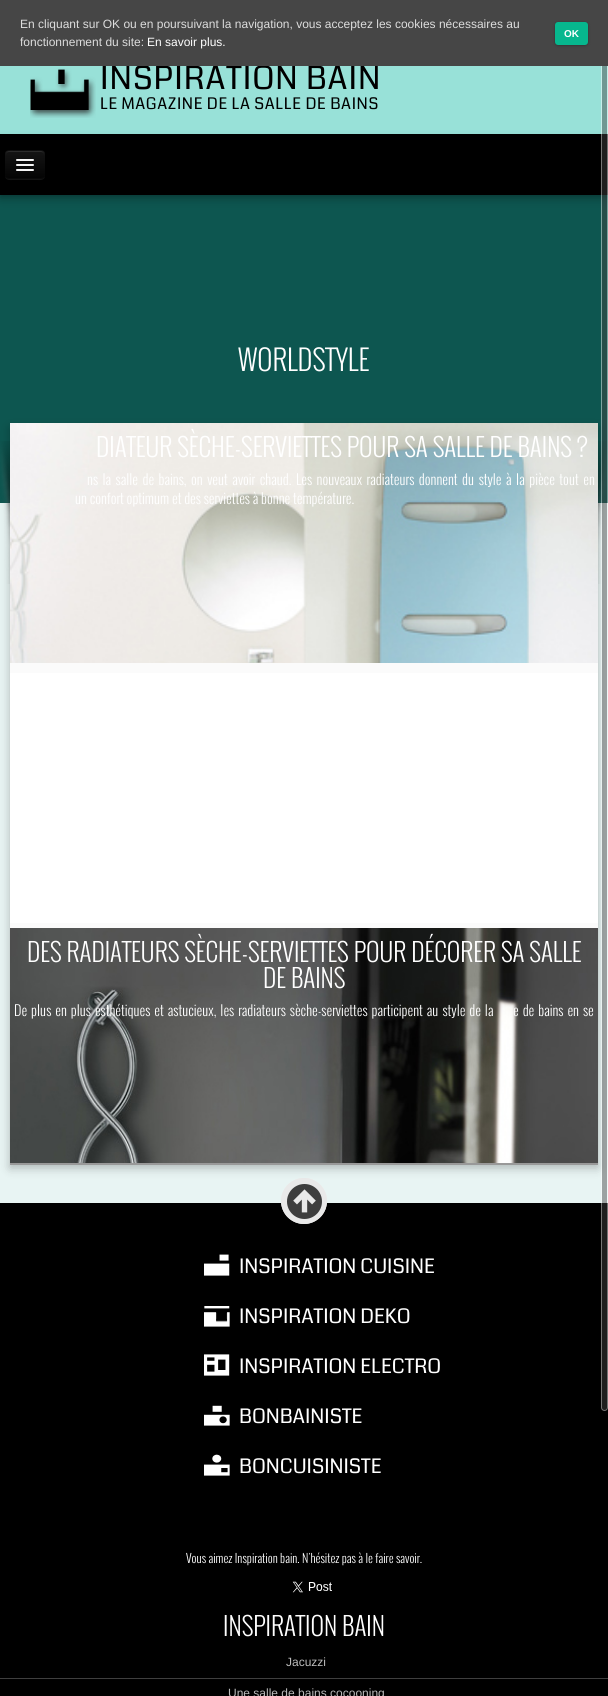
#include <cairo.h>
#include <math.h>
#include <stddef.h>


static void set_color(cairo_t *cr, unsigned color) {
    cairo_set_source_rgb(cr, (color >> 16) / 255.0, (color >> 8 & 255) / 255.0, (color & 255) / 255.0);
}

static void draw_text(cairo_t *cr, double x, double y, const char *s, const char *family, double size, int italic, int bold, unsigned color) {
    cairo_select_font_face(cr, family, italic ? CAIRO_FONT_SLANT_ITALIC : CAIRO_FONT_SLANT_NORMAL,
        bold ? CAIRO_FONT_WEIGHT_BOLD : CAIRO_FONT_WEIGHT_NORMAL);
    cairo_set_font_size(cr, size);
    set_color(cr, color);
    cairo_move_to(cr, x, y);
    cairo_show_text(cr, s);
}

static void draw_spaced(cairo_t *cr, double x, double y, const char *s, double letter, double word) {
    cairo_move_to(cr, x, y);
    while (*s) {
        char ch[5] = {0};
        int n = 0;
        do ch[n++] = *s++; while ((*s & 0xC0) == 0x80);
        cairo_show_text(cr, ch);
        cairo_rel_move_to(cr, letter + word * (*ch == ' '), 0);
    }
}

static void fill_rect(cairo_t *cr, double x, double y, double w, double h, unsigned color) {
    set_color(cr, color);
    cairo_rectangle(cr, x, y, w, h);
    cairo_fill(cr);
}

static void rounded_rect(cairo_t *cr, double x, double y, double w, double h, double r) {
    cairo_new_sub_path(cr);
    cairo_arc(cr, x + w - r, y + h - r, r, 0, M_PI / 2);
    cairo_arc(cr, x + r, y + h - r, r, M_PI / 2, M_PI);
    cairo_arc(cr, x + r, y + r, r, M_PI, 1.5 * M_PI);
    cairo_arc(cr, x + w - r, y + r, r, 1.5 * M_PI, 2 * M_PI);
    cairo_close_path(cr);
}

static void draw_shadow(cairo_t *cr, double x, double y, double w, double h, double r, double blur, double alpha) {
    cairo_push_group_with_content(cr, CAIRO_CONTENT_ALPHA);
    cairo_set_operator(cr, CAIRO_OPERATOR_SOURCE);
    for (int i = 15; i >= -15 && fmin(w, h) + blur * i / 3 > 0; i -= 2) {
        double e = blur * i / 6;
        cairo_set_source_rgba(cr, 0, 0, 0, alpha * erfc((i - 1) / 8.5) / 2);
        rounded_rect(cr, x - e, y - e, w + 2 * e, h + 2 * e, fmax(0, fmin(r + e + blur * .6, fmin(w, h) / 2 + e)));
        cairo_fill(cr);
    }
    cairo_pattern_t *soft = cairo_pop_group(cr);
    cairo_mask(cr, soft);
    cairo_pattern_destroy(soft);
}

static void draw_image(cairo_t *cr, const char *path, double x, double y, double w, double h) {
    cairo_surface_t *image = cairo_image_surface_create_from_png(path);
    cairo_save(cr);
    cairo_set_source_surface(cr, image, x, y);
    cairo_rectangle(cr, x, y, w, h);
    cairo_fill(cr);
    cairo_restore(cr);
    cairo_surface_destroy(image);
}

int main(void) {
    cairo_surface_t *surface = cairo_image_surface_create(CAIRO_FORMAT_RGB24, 608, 1696);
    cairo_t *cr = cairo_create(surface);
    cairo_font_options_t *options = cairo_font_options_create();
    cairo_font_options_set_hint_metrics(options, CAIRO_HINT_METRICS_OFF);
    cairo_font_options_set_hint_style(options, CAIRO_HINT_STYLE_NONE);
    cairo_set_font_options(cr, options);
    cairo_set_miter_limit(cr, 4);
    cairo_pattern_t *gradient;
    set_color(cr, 0xE8F4F3);
    cairo_paint(cr);
    set_color(cr, 0x000000);
    draw_shadow(cr, 10, 22, 588, 482, 0, 2, 0.1);
    fill_rect(cr, 0, 66, 608, 68, 0x98E1D8);
    fill_rect(cr, 0, 195, 608, 308, 0x0D5650);
    set_color(cr, 0x000000);
    draw_shadow(cr, -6, 135, 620, 61, 0, 2, 0.1);
    draw_shadow(cr, 0, 157, 608, 41, 0, 5, 0.3);
    fill_rect(cr, 0, 134, 608, 61, 0x000000);
    fill_rect(cr, 0, 1203, 608, 493, 0x000000);
    draw_image(cr, "assets/img6.png", 281, 1178, 46, 46);
    set_color(cr, 0x000000);
    draw_shadow(cr, 10, 428, 588, 740, 0, 5, 0.25);
    draw_image(cr, "assets/img5.png", 598, 441, 10, 143);
    cairo_set_source_rgba(cr, 0.259, 0.259, 0.259, 0.46);
    rounded_rect(cr, 602, 37, 5, 1373, 2.5);
    cairo_fill(cr);
    rounded_rect(cr, 601.5, 36.5, 6, 1374, 3);
    cairo_set_source_rgba(cr, 1, 1, 1, 0.46);
    cairo_set_line_width(cr, 1);
    cairo_stroke(cr);
    cairo_select_font_face(cr, "Coda", CAIRO_FONT_SLANT_NORMAL, CAIRO_FONT_WEIGHT_NORMAL);
    cairo_set_font_size(cr, 32);
    set_color(cr, 0x000000);
    draw_spaced(cr, 100, 89, "INSPIRATION BAIN", 1, 0);
    fill_rect(cr, 0, 0, 608, 66, 0x464646);
    draw_text(cr, 20, 28, "En cliquant sur OK ou en poursuivant la navigation, vous acceptez les cookies nécessaires au", "Liberation Sans", 12, 0, 0, 0xDDDDDD);
    draw_text(cr, 20, 46, "fonctionnement du site:", "Liberation Sans", 12, 0, 0, 0xDDDDDD);
    draw_text(cr, 147, 46, "En savoir plus.", "Liberation Sans", 12, 0, 0, 0xFFFFFF);
    set_color(cr, 0x000000);
    draw_shadow(cr, 555, 23, 33, 23, 3, 1.5, 0.2);
    draw_shadow(cr, 555, 22, 33, 23, 3, 0.5, 0.2);
    set_color(cr, 0x07B78E);
    rounded_rect(cr, 555, 22, 33, 23, 3);
    cairo_fill(cr);
    draw_text(cr, 564, 37, "OK", "Liberation Sans", 10, 0, 1, 0xFFFFFF);
    draw_image(cr, "assets/img1.png", 30, 68, 66, 50);
    cairo_select_font_face(cr, "Coda", CAIRO_FONT_SLANT_NORMAL, CAIRO_FONT_WEIGHT_NORMAL);
    cairo_set_font_size(cr, 16);
    set_color(cr, 0x000000);
    draw_spaced(cr, 100, 109, "LE MAGAZINE DE LA SALLE DE BAINS", 0.65, 0);
    set_color(cr, 0x131313);
    cairo_new_path(cr);
    cairo_move_to(cr, 5, 175);
    cairo_curve_to(cr, 5, 181, 10, 180, 14, 180);
    cairo_line_to(cr, 36, 180);
    cairo_curve_to(cr, 40, 180, 45, 181, 45, 175);
    cairo_curve_to(cr, 45, 177, 43, 179, 41, 179);
    cairo_line_to(cr, 9, 179);
    cairo_curve_to(cr, 7, 179, 5, 177, 5, 175);
    cairo_close_path(cr);
    cairo_fill(cr);
    set_color(cr, 0x0E0E0E);
    rounded_rect(cr, 5, 150, 40, 29, 4);
    cairo_fill(cr);
    cairo_save(cr);
    rounded_rect(cr, 5, 150, 40, 29, 4);
    cairo_clip(cr);
    gradient = cairo_pattern_create_linear(25, 151, 25, 178);
    cairo_pattern_add_color_stop_rgba(gradient, 0, 0.082, 0.082, 0.082, 1);
    cairo_pattern_add_color_stop_rgba(gradient, 1, 0.016, 0.016, 0.016, 1);
    cairo_set_source(cr, gradient);
    cairo_pattern_destroy(gradient);
    cairo_rectangle(cr, 5, 151, 40, 27);
    cairo_fill(cr);
    cairo_restore(cr);
    set_color(cr, 0x2C2C2C);
    cairo_new_path(cr);
    cairo_move_to(cr, 9, 152);
    cairo_line_to(cr, 41, 152);
    cairo_curve_to(cr, 43, 152, 44, 153, 44, 155);
    cairo_curve_to(cr, 44, 150, 40, 151, 35.5, 151);
    cairo_line_to(cr, 14.5, 151);
    cairo_curve_to(cr, 10, 151, 6, 150, 6, 155);
    cairo_curve_to(cr, 6, 153, 7, 152, 9, 152);
    cairo_close_path(cr);
    cairo_fill(cr);
    cairo_new_path(cr);
    cairo_move_to(cr, 43.5, 177.5);
    cairo_curve_to(cr, 43, 178, 42, 178.5, 41, 178.5);
    cairo_line_to(cr, 9, 178.5);
    cairo_curve_to(cr, 8, 178.5, 7, 178, 6.5, 177.5);
    set_color(cr, 0x0A0A0A);
    cairo_stroke(cr);
    set_color(cr, 0x0B0B0B);
    cairo_new_path(cr);
    cairo_move_to(cr, 16, 160.5);
    cairo_curve_to(cr, 15, 162.5, 19.5, 162, 19.5, 162);
    cairo_line_to(cr, 30.5, 162);
    cairo_curve_to(cr, 30.5, 162, 35, 162.5, 34, 160.5);
    cairo_curve_to(cr, 33, 161.5, 26.5, 161, 25, 161);
    cairo_curve_to(cr, 23.5, 161, 17, 161.5, 16, 160.5);
    cairo_close_path(cr);
    cairo_fill(cr);
    set_color(cr, 0xF5F5F5);
    rounded_rect(cr, 16, 159, 18, 2, 1);
    cairo_fill(cr);
    set_color(cr, 0x080808);
    cairo_new_path(cr);
    cairo_move_to(cr, 16, 165.5);
    cairo_curve_to(cr, 15, 167.5, 19.5, 167, 19.5, 167);
    cairo_line_to(cr, 30.5, 167);
    cairo_curve_to(cr, 30.5, 167, 35, 167.5, 34, 165.5);
    cairo_curve_to(cr, 33, 166.5, 26.5, 166, 25, 166);
    cairo_curve_to(cr, 23.5, 166, 17, 166.5, 16, 165.5);
    cairo_close_path(cr);
    cairo_fill(cr);
    set_color(cr, 0xF5F5F5);
    rounded_rect(cr, 16, 164, 18, 2, 1);
    cairo_fill(cr);
    rounded_rect(cr, 16, 169, 18, 2, 1);
    cairo_fill(cr);
    draw_text(cr, 238, 371, "WORLDSTYLE", "Oswald Light", 28, 0, 0, 0xFFFFFF);
    fill_rect(cr, 10, 1163, 588, 2, 0x999999);
    fill_rect(cr, 10, 663, 588, 265, 0xFBFBFB);
    draw_image(cr, "assets/img2.png", 0, 441, 10, 143);
    draw_image(cr, "assets/img3.png", 10, 423, 588, 240);
    draw_text(cr, 96, 457, "DIATEUR SÈCHE-SERVIETTES POUR SA SALLE DE BAINS ?", "Oswald Light", 25, 0, 0, 0xFFFFFF);
    cairo_set_font_size(cr, 14);
    draw_spaced(cr, 87, 485, "ns la salle de bains, on veut avoir chaud. Les nouveaux radiateurs donnent du style à la pièce tout en", 0, 1.75);
    draw_text(cr, 75, 504, "un confort optimum et des serviettes à bonne température.", "Oswald Light", 14, 0, 0, 0xFFFFFF);
    fill_rect(cr, 10, 673, 588, 250, 0xFFFFFF);
    draw_image(cr, "assets/img4.png", 10, 928, 588, 235);
    draw_text(cr, 27, 962, "DES RADIATEURS SÈCHE-SERVIETTES POUR DÉCORER SA SALLE", "Oswald Light", 25, 0, 0, 0xFFFFFF);
    draw_text(cr, 263, 988, "DE BAINS", "Oswald Light", 25, 0, 0, 0xFFFFFF);
    cairo_set_font_size(cr, 14);
    draw_spaced(cr, 14, 1016, "De plus en plus esthétiques et astucieux, les radiateurs sèche-serviettes participent au style de la", 0, 1.2);
    draw_spaced(cr, 513, 1016, "e de bains en se", 0, 1.2);
    draw_image(cr, "assets/img7.png", 204, 1254, 26, 22);
    draw_text(cr, 239, 1273, "INSPIRATION CUISINE", "Coda", 20, 0, 0, 0xFFFFFF);
    draw_image(cr, "assets/img8.png", 204, 1306, 26, 21);
    draw_text(cr, 239, 1323, "INSPIRATION DEKO", "Coda", 20, 0, 0, 0xFFFFFF);
    draw_image(cr, "assets/img9.png", 204, 1354, 26, 22);
    draw_text(cr, 239, 1373, "INSPIRATION ELECTRO", "Coda", 20, 0, 0, 0xFFFFFF);
    draw_image(cr, "assets/img10.png", 204, 1405, 26, 21);
    draw_text(cr, 239, 1423, "BONBAINISTE", "Coda", 20, 0, 0, 0xFFFFFF);
    draw_image(cr, "assets/img11.png", 204, 1454, 26, 22);
    draw_text(cr, 239, 1473, "BONCUISINISTE", "Coda", 20, 0, 0, 0xFFFFFF);
    draw_text(cr, 186, 1563, "Vous aimez Inspiration bain. N'hésitez pas à le faire savoir.", "Oswald Light", 12, 0, 0, 0xFFFFFF);
    draw_image(cr, "assets/img12.png", 292, 1581, 40, 12);
    draw_text(cr, 223, 1636, "INSPIRATION BAIN", "Oswald Light", 25, 0, 0, 0xFFFFFF);
    fill_rect(cr, 0, 1678, 608, 1, 0x3F3F3F);
    draw_text(cr, 286, 1666, "Jacuzzi", "Liberation Sans", 12, 0, 0, 0xBBBBBB);
    draw_text(cr, 228, 1697, "Une salle de bains cocooning", "Liberation Sans", 12, 0, 0, 0xBBBBBB);
    cairo_surface_write_to_png(surface, "output.png");
    cairo_font_options_destroy(options);
    cairo_destroy(cr);
    cairo_surface_destroy(surface);
    return 0;
}
